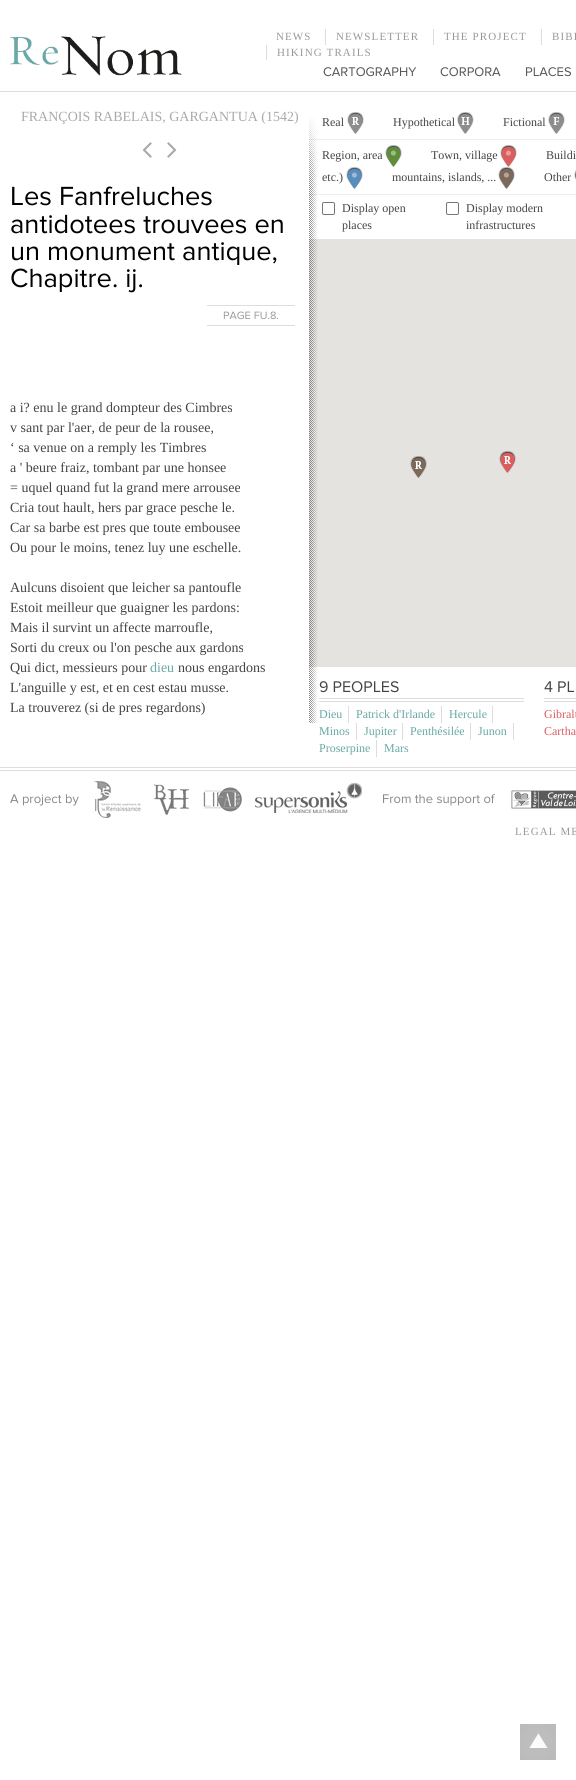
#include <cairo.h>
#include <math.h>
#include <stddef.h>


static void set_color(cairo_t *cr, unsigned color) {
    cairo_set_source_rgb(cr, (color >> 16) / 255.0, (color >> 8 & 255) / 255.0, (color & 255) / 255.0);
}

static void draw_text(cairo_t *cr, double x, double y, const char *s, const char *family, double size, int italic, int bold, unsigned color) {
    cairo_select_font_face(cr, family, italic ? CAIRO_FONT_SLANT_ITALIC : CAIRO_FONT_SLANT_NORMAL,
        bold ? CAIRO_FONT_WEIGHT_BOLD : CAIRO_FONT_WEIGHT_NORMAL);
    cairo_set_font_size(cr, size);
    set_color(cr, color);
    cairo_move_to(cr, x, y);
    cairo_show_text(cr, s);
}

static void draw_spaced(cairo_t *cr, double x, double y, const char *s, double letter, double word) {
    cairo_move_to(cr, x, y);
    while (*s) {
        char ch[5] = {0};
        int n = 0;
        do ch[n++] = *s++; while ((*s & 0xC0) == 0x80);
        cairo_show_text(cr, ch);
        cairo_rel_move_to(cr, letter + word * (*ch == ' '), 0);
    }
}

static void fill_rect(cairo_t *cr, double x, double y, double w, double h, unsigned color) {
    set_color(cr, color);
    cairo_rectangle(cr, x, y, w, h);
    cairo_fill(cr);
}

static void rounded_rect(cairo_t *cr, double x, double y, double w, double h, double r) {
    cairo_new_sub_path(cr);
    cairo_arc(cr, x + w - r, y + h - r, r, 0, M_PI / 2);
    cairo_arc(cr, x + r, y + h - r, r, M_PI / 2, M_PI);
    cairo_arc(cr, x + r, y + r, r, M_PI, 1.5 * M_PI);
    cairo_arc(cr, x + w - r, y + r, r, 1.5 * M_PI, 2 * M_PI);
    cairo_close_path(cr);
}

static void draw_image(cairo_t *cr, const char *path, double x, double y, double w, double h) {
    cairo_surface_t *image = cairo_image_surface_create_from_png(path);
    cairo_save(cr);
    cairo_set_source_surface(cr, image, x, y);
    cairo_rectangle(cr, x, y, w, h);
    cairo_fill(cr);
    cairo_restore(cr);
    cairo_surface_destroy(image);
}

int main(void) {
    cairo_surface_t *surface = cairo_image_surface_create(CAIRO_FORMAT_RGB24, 576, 1780);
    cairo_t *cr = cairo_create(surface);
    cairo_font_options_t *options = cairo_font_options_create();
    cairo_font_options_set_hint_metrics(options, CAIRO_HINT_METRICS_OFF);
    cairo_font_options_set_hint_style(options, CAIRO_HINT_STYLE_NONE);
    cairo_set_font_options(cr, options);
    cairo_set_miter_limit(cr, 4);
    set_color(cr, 0xFFFFFF);
    cairo_paint(cr);
    fill_rect(cr, 0, 91, 576, 1, 0xDDDDDD);
    draw_image(cr, "assets/img1.png", 10, 36, 172, 40);
    cairo_select_font_face(cr, "Liberation Serif", CAIRO_FONT_SLANT_NORMAL, CAIRO_FONT_WEIGHT_NORMAL);
    cairo_set_font_size(cr, 11);
    set_color(cr, 0x999999);
    draw_spaced(cr, 276, 40, "NEWS", 1.1, 0);
    fill_rect(cr, 325, 29, 1, 16, 0xDDDDDD);
    set_color(cr, 0x999999);
    draw_spaced(cr, 336, 40, "NEWSLETTER", 1.1, 0);
    fill_rect(cr, 433, 29, 1, 16, 0xDDDDDD);
    set_color(cr, 0x999999);
    draw_spaced(cr, 444, 40, "THE PROJECT", 1.1, 0);
    fill_rect(cr, 541, 29, 1, 16, 0xDDDDDD);
    set_color(cr, 0x999999);
    draw_spaced(cr, 552, 40, "BIBL", 1.1, 0);
    fill_rect(cr, 266, 45, 1, 15, 0xDDDDDD);
    set_color(cr, 0x999999);
    draw_spaced(cr, 277, 56, "HIKING TRAILS", 1.1, 0);
    draw_text(cr, 323, 76, "CARTOGRAPHY", "Proxima Nova", 13, 0, 0, 0x555555);
    draw_text(cr, 440, 76, "CORPORA", "Proxima Nova", 13, 0, 0, 0x555555);
    draw_text(cr, 525, 76, "PLACES", "Proxima Nova", 13, 0, 0, 0x555555);
    draw_text(cr, 21, 121, "FRANÇOIS RABELAIS, GARGANTUA (1542)", "Liberation Serif", 14, 0, 0, 0xAAAAAA);
    draw_image(cr, "assets/img2.png", 142, 142, 10, 16);
    draw_image(cr, "assets/img3.png", 167, 142, 10, 16);
    draw_text(cr, 10, 205, "Les Fanfreluches", "Proxima Nova", 27.25, 0, 0, 0x000000);
    draw_text(cr, 10, 233, "antidotees trouvees en", "Proxima Nova", 27.25, 0, 0, 0x000000);
    draw_text(cr, 10, 260, "un monument antique,", "Proxima Nova", 27.25, 0, 0, 0x000000);
    draw_text(cr, 10, 287, "Chapitre. ij.", "Proxima Nova", 27.25, 0, 0, 0x000000);
    fill_rect(cr, 207, 305, 88, 1, 0xDDDDDD);
    fill_rect(cr, 207, 325, 88, 1, 0xDDDDDD);
    draw_text(cr, 223, 319, "PAGE FU.8.", "Proxima Nova", 11, 0, 0, 0x999999);
    draw_text(cr, 10, 412, "a i? enu le grand dompteur des Cimbres", "Liberation Serif", 14, 0, 0, 0x444444);
    draw_text(cr, 10, 432, "v sant par l'aer, de peur de la rousee,", "Liberation Serif", 14, 0, 0, 0x444444);
    draw_text(cr, 10, 452, "‘ sa venue on a remply les Timbres", "Liberation Serif", 14, 0, 0, 0x444444);
    draw_text(cr, 10, 472, "a ' beure fraiz, tombant par une honsee", "Liberation Serif", 14, 0, 0, 0x444444);
    draw_text(cr, 10, 492, "= uquel quand fut la grand mere arrousee", "Liberation Serif", 14, 0, 0, 0x444444);
    draw_text(cr, 10, 512, "Cria tout hault, hers par grace pesche le.", "Liberation Serif", 14, 0, 0, 0x444444);
    draw_text(cr, 10, 532, "Car sa barbe est pres que toute embousee", "Liberation Serif", 14, 0, 0, 0x444444);
    draw_text(cr, 10, 552, "Ou pour le moins, tenez luy une eschelle.", "Liberation Serif", 14, 0, 0, 0x444444);
    draw_text(cr, 10, 592, "Aulcuns disoient que leicher sa pantoufle", "Liberation Serif", 14, 0, 0, 0x444444);
    draw_text(cr, 10, 612, "Estoit meilleur que guaigner les pardons:", "Liberation Serif", 14, 0, 0, 0x444444);
    draw_text(cr, 10, 632, "Mais il survint un affecte marroufle,", "Liberation Serif", 14, 0, 0, 0x444444);
    draw_text(cr, 10, 652, "Sorti du creux ou l'on pesche aux gardons", "Liberation Serif", 14, 0, 0, 0x444444);
    draw_text(cr, 10, 672, "Qui dict, messieurs pour", "Liberation Serif", 14, 0, 0, 0x444444);
    draw_text(cr, 150, 672, "dieu", "Liberation Serif", 14, 0, 0, 0x68A8A5);
    draw_text(cr, 178, 672, "nous engardons", "Liberation Serif", 14, 0, 0, 0x444444);
    draw_text(cr, 10, 692, "L'anguille y est, et en cest estau musse.", "Liberation Serif", 14, 0, 0, 0x444444);
    draw_text(cr, 10, 712, "La trouverez (si de pres regardons)", "Liberation Serif", 14, 0, 0, 0x444444);
    fill_rect(cr, 309, 139, 267, 1, 0xEEEEEE);
    fill_rect(cr, 309, 194, 267, 1, 0xEEEEEE);
    fill_rect(cr, 309, 239, 267, 428, 0xE5E3DF);
    draw_image(cr, "assets/img4.png", 309, 117, 9, 606);
    draw_text(cr, 322, 126, "Real", "Liberation Serif", 12, 0, 0, 0x444444);
    draw_image(cr, "assets/img5.png", 347, 112, 17, 22);
    draw_text(cr, 393, 126, "Hypothetical", "Liberation Serif", 12, 0, 0, 0x444444);
    draw_image(cr, "assets/img6.png", 457, 112, 17, 22);
    draw_text(cr, 503, 126, "Fictional", "Liberation Serif", 12, 0, 0, 0x444444);
    draw_image(cr, "assets/img7.png", 548, 112, 17, 22);
    draw_text(cr, 322, 159, "Region, area", "Liberation Serif", 12, 0, 0, 0x444444);
    draw_image(cr, "assets/img8.png", 385, 145, 17, 22);
    draw_text(cr, 431, 159, "Town, village", "Liberation Serif", 12, 0, 0, 0x444444);
    draw_image(cr, "assets/img9.png", 500, 145, 17, 22);
    draw_text(cr, 546, 159, "Buildi", "Liberation Serif", 12, 0, 0, 0x444444);
    draw_text(cr, 322, 181, "etc.)", "Liberation Serif", 12, 0, 0, 0x444444);
    draw_image(cr, "assets/img10.png", 346, 167, 17, 22);
    draw_text(cr, 392, 181, "mountains, islands, ...", "Liberation Serif", 12, 0, 0, 0x444444);
    draw_image(cr, "assets/img11.png", 498, 167, 17, 22);
    draw_text(cr, 544, 181, "Other", "Liberation Serif", 12, 0, 0, 0x444444);
    draw_image(cr, "assets/img12.png", 574, 170, 2, 10);
    rounded_rect(cr, 322.5, 202.5, 12, 12, 1.5);
    set_color(cr, 0x767676);
    cairo_set_line_width(cr, 1);
    cairo_stroke(cr);
    draw_text(cr, 342, 212, "Display open", "Liberation Serif", 12, 0, 0, 0x444444);
    draw_text(cr, 342, 229, "places", "Liberation Serif", 12, 0, 0, 0x444444);
    rounded_rect(cr, 446.5, 202.5, 12, 12, 1.5);
    set_color(cr, 0x767676);
    cairo_stroke(cr);
    draw_text(cr, 466, 212, "Display modern", "Liberation Serif", 12, 0, 0, 0x444444);
    draw_text(cr, 466, 229, "infrastructures", "Liberation Serif", 12, 0, 0, 0x444444);
    draw_image(cr, "assets/img13.png", 410, 456, 17, 22);
    draw_image(cr, "assets/img14.png", 499, 451, 17, 22);
    fill_rect(cr, 319, 698, 205, 1, 0xDDDDDD);
    fill_rect(cr, 319, 701, 205, 1, 0xDDDDDD);
    draw_text(cr, 319, 692, "9 PEOPLES", "Proxima Nova", 16, 0, 0, 0x444444);
    fill_rect(cr, 348, 706, 1, 17, 0xDDDDDD);
    draw_text(cr, 319, 718, "Dieu", "Liberation Serif", 12, 0, 0, 0x68A8A5);
    fill_rect(cr, 441, 706, 1, 17, 0xDDDDDD);
    draw_text(cr, 356, 718, "Patrick d'Irlande", "Liberation Serif", 12, 0, 0, 0x68A8A5);
    fill_rect(cr, 492, 706, 1, 17, 0xDDDDDD);
    draw_text(cr, 449, 718, "Hercule", "Liberation Serif", 12, 0, 0, 0x68A8A5);
    fill_rect(cr, 356, 723, 1, 17, 0xDDDDDD);
    draw_text(cr, 319, 735, "Minos", "Liberation Serif", 12, 0, 0, 0x68A8A5);
    fill_rect(cr, 402, 723, 1, 17, 0xDDDDDD);
    draw_text(cr, 364, 735, "Jupiter", "Liberation Serif", 12, 0, 0, 0x68A8A5);
    fill_rect(cr, 470, 723, 1, 17, 0xDDDDDD);
    draw_text(cr, 410, 735, "Penthésilée", "Liberation Serif", 12, 0, 0, 0x68A8A5);
    fill_rect(cr, 513, 723, 1, 17, 0xDDDDDD);
    draw_text(cr, 478, 735, "Junon", "Liberation Serif", 12, 0, 0, 0x68A8A5);
    fill_rect(cr, 376, 740, 1, 17, 0xDDDDDD);
    draw_text(cr, 319, 752, "Proserpine", "Liberation Serif", 12, 0, 0, 0x68A8A5);
    draw_text(cr, 384, 752, "Mars", "Liberation Serif", 12, 0, 0, 0x68A8A5);
    fill_rect(cr, 544, 698, 32, 1, 0xDDDDDD);
    fill_rect(cr, 544, 701, 32, 1, 0xDDDDDD);
    draw_text(cr, 544, 692, "4 PL", "Proxima Nova", 16, 0, 0, 0x444444);
    draw_text(cr, 544, 718, "Gibralt", "Liberation Serif", 12, 0, 0, 0xDB5E5F);
    draw_text(cr, 544, 735, "Cartha", "Liberation Serif", 12, 0, 0, 0xDB5E5F);
    fill_rect(cr, 0, 767, 576, 1, 0xDDDDDD);
    fill_rect(cr, 0, 770, 576, 1, 0xDDDDDD);
    draw_text(cr, 10, 803, "A project by", "Proxima Nova", 13, 0, 0, 0x888888);
    draw_image(cr, "assets/img15.png", 94, 781, 47, 37);
    draw_image(cr, "assets/img16.png", 153, 784, 36, 32);
    draw_image(cr, "assets/img17.png", 203, 787, 39, 25);
    draw_image(cr, "assets/img18.png", 255, 783, 107, 30);
    draw_text(cr, 382, 803, "From the support of", "Proxima Nova", 13, 0, 0, 0x888888);
    draw_image(cr, "assets/img19.png", 511, 790, 65, 19);
    cairo_select_font_face(cr, "Liberation Serif", CAIRO_FONT_SLANT_NORMAL, CAIRO_FONT_WEIGHT_NORMAL);
    cairo_set_font_size(cr, 11);
    set_color(cr, 0x999999);
    draw_spaced(cr, 515, 835, "LEGAL ME", 1.1, 0);
    draw_image(cr, "assets/img20.png", 520, 1724, 36, 36);
    cairo_surface_write_to_png(surface, "output.png");
    cairo_font_options_destroy(options);
    cairo_destroy(cr);
    cairo_surface_destroy(surface);
    return 0;
}
